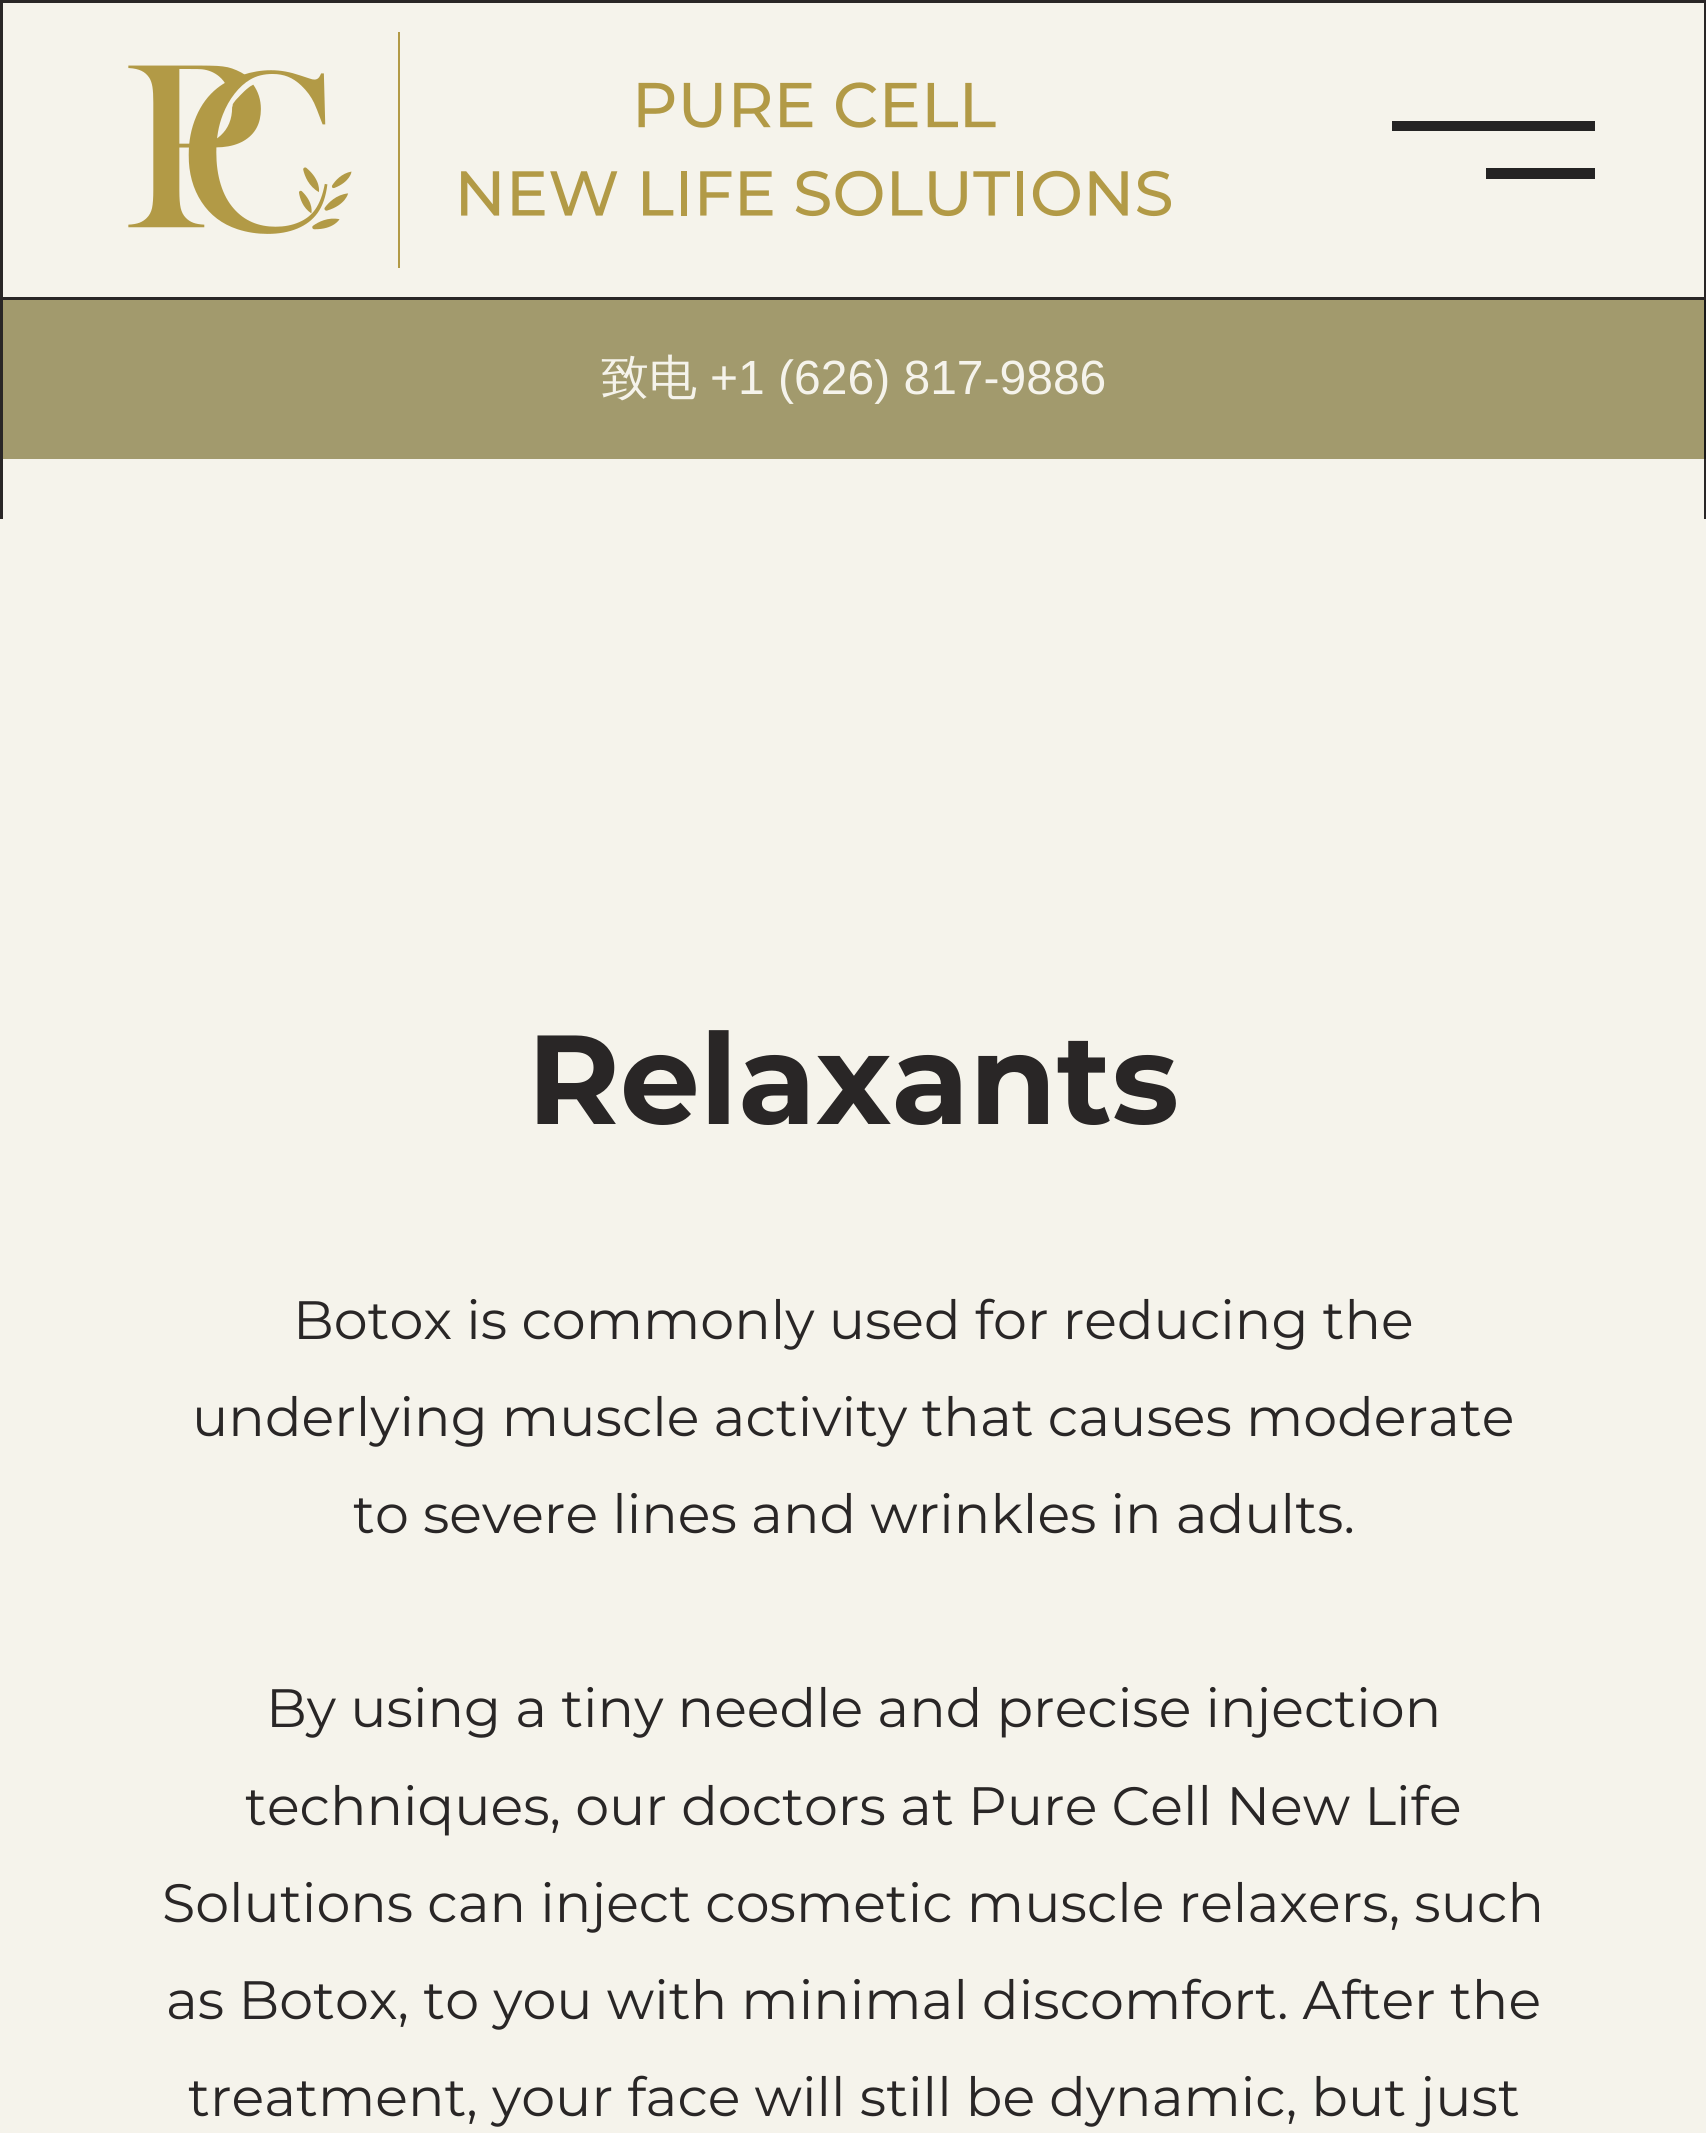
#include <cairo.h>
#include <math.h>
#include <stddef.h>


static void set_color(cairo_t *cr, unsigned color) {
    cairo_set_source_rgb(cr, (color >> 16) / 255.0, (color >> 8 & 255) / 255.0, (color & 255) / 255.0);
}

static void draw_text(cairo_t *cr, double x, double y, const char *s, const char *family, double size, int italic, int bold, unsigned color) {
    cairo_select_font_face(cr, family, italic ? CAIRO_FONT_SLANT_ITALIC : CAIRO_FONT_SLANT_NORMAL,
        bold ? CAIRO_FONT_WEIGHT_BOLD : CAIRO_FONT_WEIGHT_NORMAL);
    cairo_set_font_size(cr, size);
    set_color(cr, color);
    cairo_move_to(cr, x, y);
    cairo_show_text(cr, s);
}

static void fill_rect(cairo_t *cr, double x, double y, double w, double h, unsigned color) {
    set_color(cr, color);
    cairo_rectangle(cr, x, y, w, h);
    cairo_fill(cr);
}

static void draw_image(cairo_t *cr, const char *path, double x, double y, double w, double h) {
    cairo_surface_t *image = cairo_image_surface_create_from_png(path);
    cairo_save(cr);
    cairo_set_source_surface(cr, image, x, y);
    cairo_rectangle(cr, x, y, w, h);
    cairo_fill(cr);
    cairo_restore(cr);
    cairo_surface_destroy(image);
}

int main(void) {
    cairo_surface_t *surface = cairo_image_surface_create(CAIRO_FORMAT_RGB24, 1706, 2133);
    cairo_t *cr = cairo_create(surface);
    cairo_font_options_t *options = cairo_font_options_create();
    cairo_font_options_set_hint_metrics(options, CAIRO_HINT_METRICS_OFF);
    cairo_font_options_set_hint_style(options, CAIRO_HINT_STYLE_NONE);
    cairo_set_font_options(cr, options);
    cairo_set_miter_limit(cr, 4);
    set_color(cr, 0xF5F3EB);
    cairo_paint(cr);
    cairo_rectangle(cr, 1.5, 1.5, 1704, 615);
    set_color(cr, 0x292626);
    cairo_set_line_width(cr, 3);
    cairo_stroke(cr);
    cairo_rectangle(cr, 1.5, 1.5, 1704, 297);
    cairo_stroke(cr);
    draw_image(cr, "assets/img1.png", 128, 32, 1043, 236);
    fill_rect(cr, 1392, 121, 203, 10, 0x242323);
    fill_rect(cr, 1486, 168, 109, 11, 0x242323);
    fill_rect(cr, 3, 300, 1701, 159, 0xA29A6D);
    draw_text(cr, 601, 394, "致电", "WenQuanYi Zen Hei Medium", 48, 0, 0, 0xF5F3EB);
    draw_text(cr, 710, 394, "+1 (626) 817-9886", "Liberation Sans", 48, 0, 0, 0xF5F3EB);
    fill_rect(cr, 1704, 300, 2, 159, 0x181818);
    fill_rect(cr, 0, 519, 1706, 99, 0xF5F3EB);
    draw_text(cr, 527, 1124, "Relaxants", "Montserrat", 126.5, 0, 1, 0x292626);
    draw_text(cr, 293, 1339, "Botox is commonly used for reducing the", "Montserrat", 54, 0, 0, 0x292626);
    draw_text(cr, 192, 1436, "underlying muscle activity that causes moderate", "Montserrat", 54, 0, 0, 0x292626);
    draw_text(cr, 353, 1533, "to severe lines and wrinkles in adults.", "Montserrat", 54, 0, 0, 0x292626);
    draw_text(cr, 266, 1727, "By using a tiny needle and precise injection", "Montserrat", 54, 0, 0, 0x292626);
    draw_text(cr, 245, 1825, "techniques, our doctors at Pure Cell New Life", "Montserrat", 54, 0, 0, 0x292626);
    draw_text(cr, 162, 1922, "Solutions can inject cosmetic muscle relaxers, such", "Montserrat", 54, 0, 0, 0x292626);
    draw_text(cr, 166, 2019, "as Botox, to you with minimal discomfort. After the", "Montserrat", 54, 0, 0, 0x292626);
    draw_text(cr, 188, 2116, "treatment, your face will still be dynamic, but just", "Montserrat", 54, 0, 0, 0x292626);
    cairo_surface_write_to_png(surface, "output.png");
    cairo_font_options_destroy(options);
    cairo_destroy(cr);
    cairo_surface_destroy(surface);
    return 0;
}
